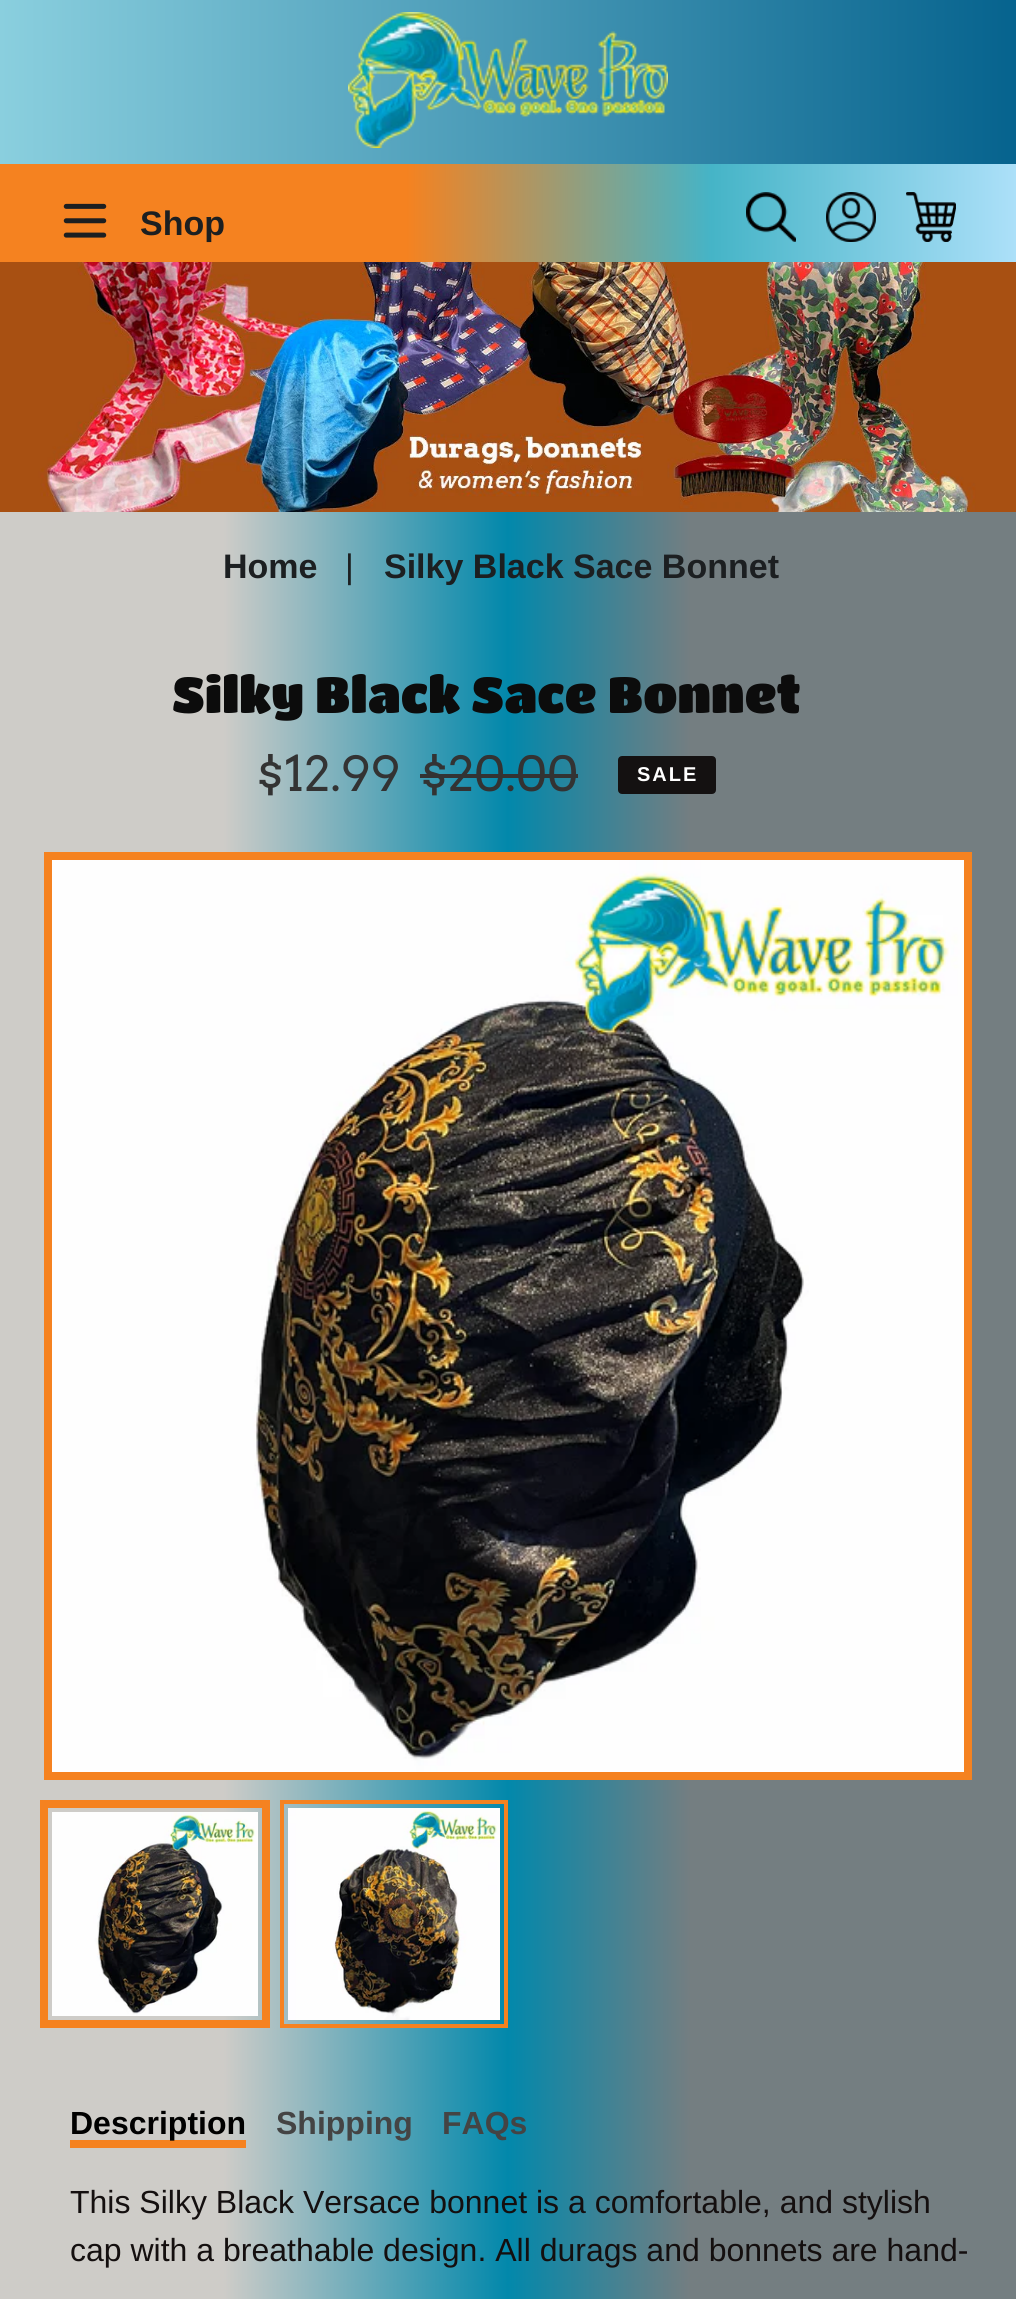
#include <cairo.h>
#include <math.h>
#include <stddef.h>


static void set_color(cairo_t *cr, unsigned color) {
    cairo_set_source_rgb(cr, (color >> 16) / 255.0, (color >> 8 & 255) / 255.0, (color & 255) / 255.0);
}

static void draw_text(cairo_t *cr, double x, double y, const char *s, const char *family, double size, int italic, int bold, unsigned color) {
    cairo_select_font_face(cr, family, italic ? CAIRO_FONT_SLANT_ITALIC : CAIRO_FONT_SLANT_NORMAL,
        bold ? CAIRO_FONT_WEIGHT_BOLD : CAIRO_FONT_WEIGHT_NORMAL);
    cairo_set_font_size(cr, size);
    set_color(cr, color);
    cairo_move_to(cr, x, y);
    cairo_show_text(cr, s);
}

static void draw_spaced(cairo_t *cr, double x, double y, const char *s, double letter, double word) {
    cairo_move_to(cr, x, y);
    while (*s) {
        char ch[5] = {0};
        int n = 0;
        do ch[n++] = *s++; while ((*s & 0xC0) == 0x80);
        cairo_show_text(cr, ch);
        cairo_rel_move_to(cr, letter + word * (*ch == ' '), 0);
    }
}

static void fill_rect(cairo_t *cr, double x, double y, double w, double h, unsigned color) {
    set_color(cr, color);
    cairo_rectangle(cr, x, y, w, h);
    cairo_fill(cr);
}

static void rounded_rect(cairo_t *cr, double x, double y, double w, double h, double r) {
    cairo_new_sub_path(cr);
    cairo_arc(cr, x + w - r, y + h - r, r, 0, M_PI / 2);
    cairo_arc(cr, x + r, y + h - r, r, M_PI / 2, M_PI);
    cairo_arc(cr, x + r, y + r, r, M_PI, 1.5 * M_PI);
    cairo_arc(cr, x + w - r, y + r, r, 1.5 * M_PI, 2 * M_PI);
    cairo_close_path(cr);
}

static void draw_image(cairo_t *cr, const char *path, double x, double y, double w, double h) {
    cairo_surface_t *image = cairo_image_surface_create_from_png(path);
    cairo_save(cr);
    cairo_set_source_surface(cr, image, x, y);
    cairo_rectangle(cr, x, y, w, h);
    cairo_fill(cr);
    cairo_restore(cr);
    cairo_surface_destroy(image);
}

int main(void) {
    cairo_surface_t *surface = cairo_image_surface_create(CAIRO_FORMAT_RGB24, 1016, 2299);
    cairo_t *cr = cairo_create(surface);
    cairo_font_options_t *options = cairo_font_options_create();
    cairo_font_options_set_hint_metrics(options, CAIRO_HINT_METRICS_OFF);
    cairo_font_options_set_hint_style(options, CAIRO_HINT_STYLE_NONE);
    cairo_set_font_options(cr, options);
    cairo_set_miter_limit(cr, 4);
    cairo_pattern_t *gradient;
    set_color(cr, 0xFFFFFF);
    cairo_paint(cr);
    gradient = cairo_pattern_create_linear(0, 131, 1016, 131);
    cairo_pattern_add_color_stop_rgba(gradient, 0, 0.541, 0.812, 0.871, 1);
    cairo_pattern_add_color_stop_rgba(gradient, 1, 0.024, 0.388, 0.557, 1);
    cairo_set_source(cr, gradient);
    cairo_pattern_destroy(gradient);
    cairo_rectangle(cr, 0, 0, 1016, 164);
    cairo_fill(cr);
    draw_image(cr, "assets/img1.png", 348, 12, 320, 136);
    gradient = cairo_pattern_create_linear(0, 213, 1016, 213);
    cairo_pattern_add_color_stop_rgba(gradient, 0.4, 0.961, 0.51, 0.125, 1);
    cairo_pattern_add_color_stop_rgba(gradient, 0.7, 0.271, 0.706, 0.78, 1);
    cairo_pattern_add_color_stop_rgba(gradient, 1, 0.675, 0.878, 0.976, 1);
    cairo_set_source(cr, gradient);
    cairo_pattern_destroy(gradient);
    cairo_rectangle(cr, 0, 164, 1016, 98);
    cairo_fill(cr);
    draw_image(cr, "assets/img2.png", 63, 203, 44, 35);
    draw_text(cr, 140, 235, "Shop", "Liberation Sans", 34, 0, 1, 0x1C1F21);
    draw_image(cr, "assets/img3.png", 746, 192, 50, 50);
    draw_image(cr, "assets/img4.png", 826, 192, 50, 50);
    draw_image(cr, "assets/img5.png", 906, 192, 50, 50);
    gradient = cairo_pattern_create_linear(0, 2158, 1016, 2158);
    cairo_pattern_add_color_stop_rgba(gradient, 0.22, 0.808, 0.8, 0.784, 1);
    cairo_pattern_add_color_stop_rgba(gradient, 0.5, 0.008, 0.533, 0.671, 1);
    cairo_pattern_add_color_stop_rgba(gradient, 0.68, 0.455, 0.494, 0.506, 1);
    cairo_set_source(cr, gradient);
    cairo_pattern_destroy(gradient);
    cairo_rectangle(cr, 0, 512, 1016, 1787);
    cairo_fill(cr);
    draw_image(cr, "assets/img6.png", 0, 262, 1016, 250);
    draw_text(cr, 223, 578, "Home", "Liberation Sans", 34, 0, 1, 0x1C1F21);
    draw_text(cr, 345, 578, "|", "Liberation Sans", 34, 0, 0, 0x1C1F21);
    draw_text(cr, 384, 578, "Silky Black Sace Bonnet", "Liberation Sans", 34, 0, 1, 0x1C1F21);
    draw_text(cr, 172, 713, "Silky Black Sace Bonnet", "Titan One", 50, 0, 0, 0x0C0C0C);
    draw_text(cr, 256, 791, "$12.99", "Arvo", 48, 0, 0, 0x333333);
    draw_text(cr, 420, 791, "$20.00", "Arvo", 48, 0, 0, 0x333333);
    fill_rect(cr, 420, 774, 158, 4, 0x333333);
    set_color(cr, 0x141111);
    rounded_rect(cr, 619, 757, 96, 36, 3);
    cairo_fill_preserve(cr);
    cairo_stroke(cr);
    cairo_select_font_face(cr, "Liberation Sans", CAIRO_FONT_SLANT_NORMAL, CAIRO_FONT_WEIGHT_BOLD);
    cairo_set_font_size(cr, 20);
    set_color(cr, 0xFFFFFF);
    draw_spaced(cr, 637, 781, "SALE", 2, 0);
    cairo_rectangle(cr, 48, 856, 920, 920);
    set_color(cr, 0xF58220);
    cairo_set_line_width(cr, 8);
    cairo_stroke(cr);
    draw_image(cr, "assets/img7.png", 52, 860, 912, 912);
    cairo_rectangle(cr, 44, 1804, 222, 220);
    cairo_stroke(cr);
    draw_image(cr, "assets/img8.png", 52, 1812, 206, 204);
    cairo_rectangle(cr, 282, 1802, 224, 224);
    cairo_set_line_width(cr, 4);
    cairo_stroke(cr);
    draw_image(cr, "assets/img9.png", 288, 1808, 212, 212);
    fill_rect(cr, 70, 2140, 176, 8, 0xF58220);
    draw_text(cr, 70, 2134, "Description", "Liberation Sans", 32, 0, 1, 0x000000);
    draw_text(cr, 276, 2134, "Shipping", "Liberation Sans", 32, 0, 1, 0x444444);
    draw_text(cr, 442, 2134, "FAQs", "Liberation Sans", 32, 0, 1, 0x444444);
    draw_text(cr, 70, 2213, "This Silky Black Versace bonnet is a comfortable, and stylish", "Liberation Sans", 32, 0, 0, 0x140F0F);
    draw_text(cr, 70, 2261, "cap with a breathable design. All durags and bonnets are hand-", "Liberation Sans", 32, 0, 0, 0x140F0F);
    cairo_surface_write_to_png(surface, "output.png");
    cairo_font_options_destroy(options);
    cairo_destroy(cr);
    cairo_surface_destroy(surface);
    return 0;
}
